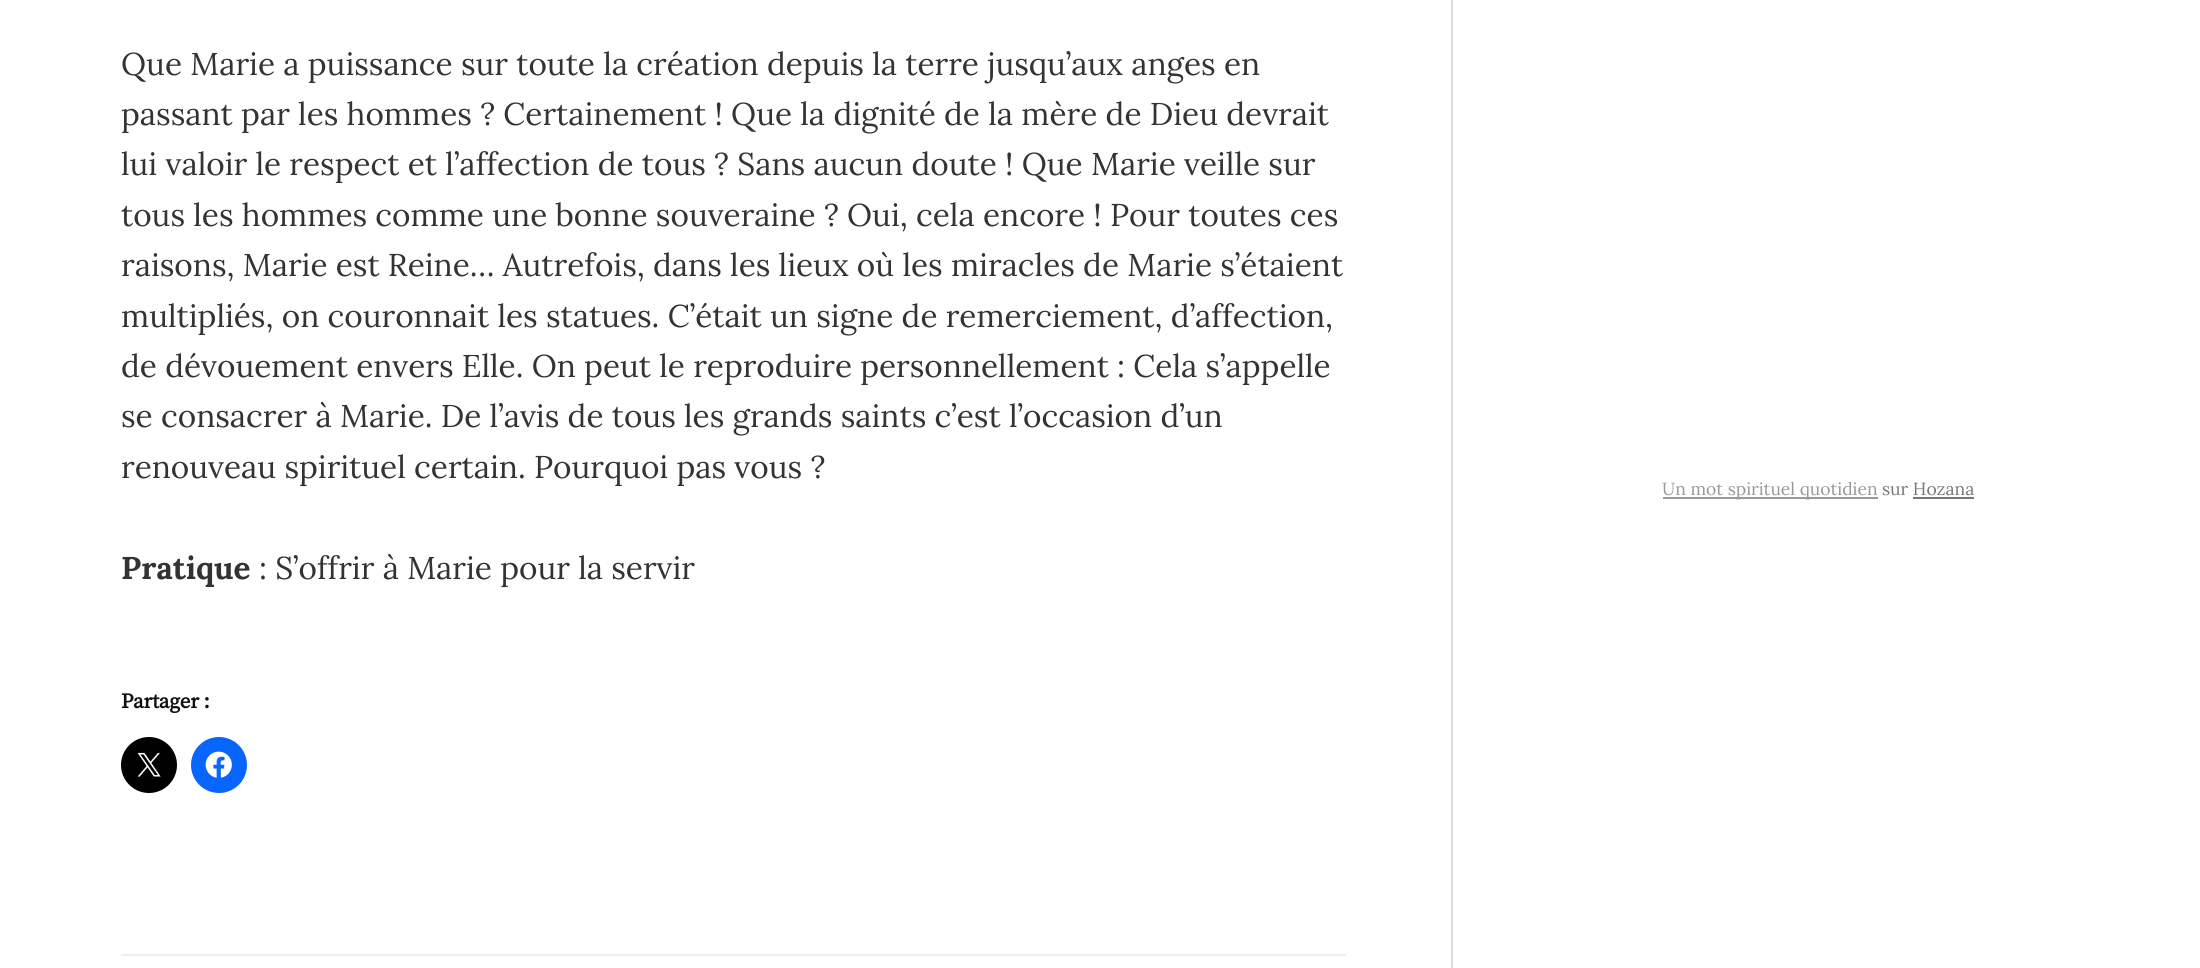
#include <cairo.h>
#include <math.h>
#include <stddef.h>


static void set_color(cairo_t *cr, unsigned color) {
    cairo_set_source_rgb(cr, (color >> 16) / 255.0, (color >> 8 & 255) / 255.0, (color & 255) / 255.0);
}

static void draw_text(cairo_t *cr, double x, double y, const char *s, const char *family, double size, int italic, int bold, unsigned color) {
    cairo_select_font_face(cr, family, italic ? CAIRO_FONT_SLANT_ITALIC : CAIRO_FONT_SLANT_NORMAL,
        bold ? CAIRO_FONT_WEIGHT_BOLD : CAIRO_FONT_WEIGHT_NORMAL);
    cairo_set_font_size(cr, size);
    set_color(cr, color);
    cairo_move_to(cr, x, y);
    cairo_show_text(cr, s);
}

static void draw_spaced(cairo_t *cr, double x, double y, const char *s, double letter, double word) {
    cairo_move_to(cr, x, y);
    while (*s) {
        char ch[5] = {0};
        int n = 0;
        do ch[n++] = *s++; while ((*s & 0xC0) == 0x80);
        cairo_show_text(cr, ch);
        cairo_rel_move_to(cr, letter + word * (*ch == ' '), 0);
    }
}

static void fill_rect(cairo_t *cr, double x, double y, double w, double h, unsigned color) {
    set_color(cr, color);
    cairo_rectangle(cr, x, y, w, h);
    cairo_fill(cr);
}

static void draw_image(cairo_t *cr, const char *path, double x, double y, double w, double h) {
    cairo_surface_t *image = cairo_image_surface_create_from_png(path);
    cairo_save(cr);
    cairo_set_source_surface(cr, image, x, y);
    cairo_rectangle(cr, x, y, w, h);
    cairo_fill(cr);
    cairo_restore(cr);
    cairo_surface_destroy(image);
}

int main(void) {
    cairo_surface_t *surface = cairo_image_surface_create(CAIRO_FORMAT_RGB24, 2200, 968);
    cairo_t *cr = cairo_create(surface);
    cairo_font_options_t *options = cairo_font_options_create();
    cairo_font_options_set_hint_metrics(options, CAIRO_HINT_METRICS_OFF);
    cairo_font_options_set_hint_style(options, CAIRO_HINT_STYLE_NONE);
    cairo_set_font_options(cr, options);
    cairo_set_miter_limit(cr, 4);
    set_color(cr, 0xFFFFFF);
    cairo_paint(cr);
    fill_rect(cr, 1451, 0, 2, 968, 0xDDDDDD);
    draw_text(cr, 121, 75, "Que Marie a puissance sur toute la création depuis la terre jusqu’aux anges en", "Lora", 31.5, 0, 0, 0x333333);
    draw_text(cr, 121, 125, "passant par les hommes ? Certainement ! Que la dignité de la mère de Dieu devrait", "Lora", 31.5, 0, 0, 0x333333);
    draw_text(cr, 121, 175, "lui valoir le respect et l’affection de tous ? Sans aucun doute ! Que Marie veille sur", "Lora", 31.5, 0, 0, 0x333333);
    draw_text(cr, 121, 226, "tous les hommes comme une bonne souveraine ? Oui, cela encore ! Pour toutes ces", "Lora", 31.5, 0, 0, 0x333333);
    draw_text(cr, 121, 276, "raisons, Marie est Reine… Autrefois, dans les lieux où les miracles de Marie s’étaient", "Lora", 31.5, 0, 0, 0x333333);
    draw_text(cr, 121, 327, "multipliés, on couronnait les statues. C’était un signe de remerciement, d’affection,", "Lora", 31.5, 0, 0, 0x333333);
    draw_text(cr, 121, 377, "de dévouement envers Elle. On peut le reproduire personnellement : Cela s’appelle", "Lora", 31.5, 0, 0, 0x333333);
    draw_text(cr, 121, 427, "se consacrer à Marie. De l’avis de tous les grands saints c’est l’occasion d’un", "Lora", 31.5, 0, 0, 0x333333);
    draw_text(cr, 121, 478, "renouveau spirituel certain. Pourquoi pas vous ?", "Lora", 31.5, 0, 0, 0x333333);
    draw_text(cr, 121, 579, "Pratique", "Lora", 31.5, 0, 1, 0x333333);
    draw_text(cr, 259, 579, ": S’offrir à Marie pour la servir", "Lora", 31.5, 0, 0, 0x333333);
    cairo_select_font_face(cr, "Source Serif Pro", CAIRO_FONT_SLANT_NORMAL, CAIRO_FONT_WEIGHT_BOLD);
    cairo_set_font_size(cr, 21);
    set_color(cr, 0x111111);
    draw_spaced(cr, 121, 708, "Partager :", -0.25, 0);
    set_color(cr, 0x000000);
    cairo_new_path(cr);
    cairo_arc(cr, 149, 765, 28, 0, 2 * M_PI);
    cairo_fill(cr);
    draw_image(cr, "assets/img1.png", 137, 752, 24, 25);
    set_color(cr, 0x0866FF);
    cairo_arc(cr, 219, 765, 28, 0, 2 * M_PI);
    cairo_fill(cr);
    draw_image(cr, "assets/img2.png", 205, 751, 27, 27);
    fill_rect(cr, 121, 954, 1225, 2, 0xEEEEEE);
    fill_rect(cr, 1663, 497, 215, 2, 0x999999);
    draw_text(cr, 1662, 495, "Un mot spirituel quotidien", "Lora", 17.5, 0, 0, 0x999999);
    draw_text(cr, 1882, 495, "sur Hozana", "Lora", 17.5, 0, 0, 0x777777);
    fill_rect(cr, 1913, 497, 61, 2, 0x777777);
    cairo_surface_write_to_png(surface, "output.png");
    cairo_font_options_destroy(options);
    cairo_destroy(cr);
    cairo_surface_destroy(surface);
    return 0;
}
